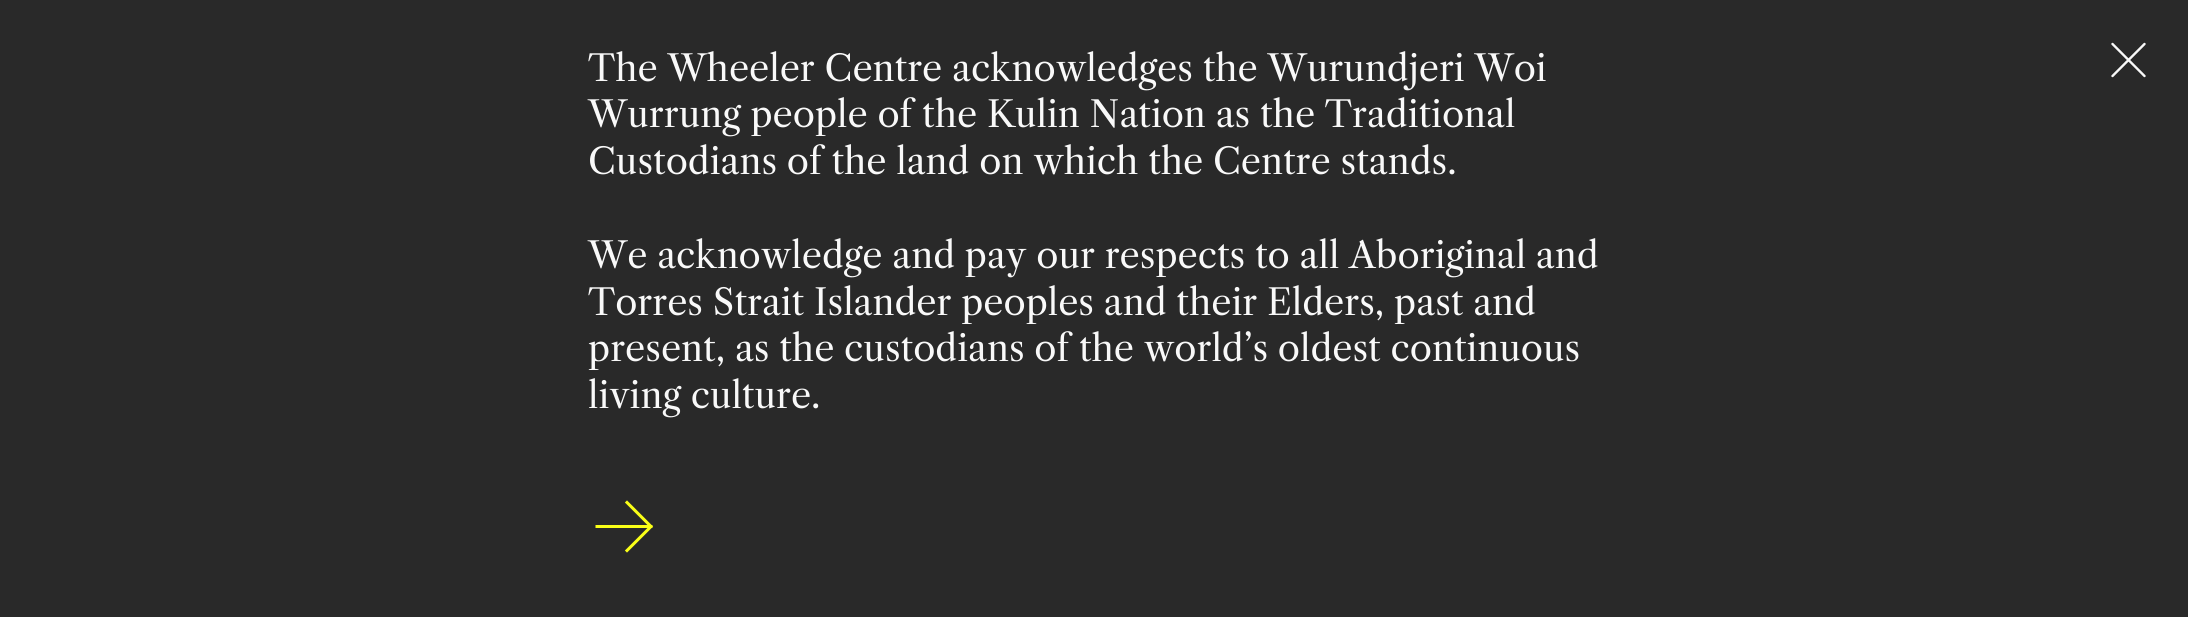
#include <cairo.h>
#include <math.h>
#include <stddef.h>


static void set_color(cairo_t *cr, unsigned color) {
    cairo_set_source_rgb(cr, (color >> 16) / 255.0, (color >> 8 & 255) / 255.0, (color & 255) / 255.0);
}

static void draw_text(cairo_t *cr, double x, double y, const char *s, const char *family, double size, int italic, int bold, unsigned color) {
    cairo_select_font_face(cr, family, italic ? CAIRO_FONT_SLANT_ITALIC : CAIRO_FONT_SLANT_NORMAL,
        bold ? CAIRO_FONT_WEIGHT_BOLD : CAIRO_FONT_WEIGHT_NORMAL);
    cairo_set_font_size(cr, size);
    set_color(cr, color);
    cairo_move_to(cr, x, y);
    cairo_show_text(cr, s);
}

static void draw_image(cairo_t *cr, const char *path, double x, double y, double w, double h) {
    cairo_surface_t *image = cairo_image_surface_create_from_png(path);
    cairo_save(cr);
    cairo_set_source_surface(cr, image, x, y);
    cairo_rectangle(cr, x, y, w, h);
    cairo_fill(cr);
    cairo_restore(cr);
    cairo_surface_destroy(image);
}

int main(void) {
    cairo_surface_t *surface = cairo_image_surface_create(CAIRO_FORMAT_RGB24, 2188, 617);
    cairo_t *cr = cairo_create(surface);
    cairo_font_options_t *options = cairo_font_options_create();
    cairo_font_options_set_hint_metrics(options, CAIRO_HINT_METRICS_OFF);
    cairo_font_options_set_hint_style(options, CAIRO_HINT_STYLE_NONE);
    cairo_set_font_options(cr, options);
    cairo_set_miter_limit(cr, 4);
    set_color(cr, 0x292929);
    cairo_paint(cr);
    draw_text(cr, 588, 81, "The Wheeler Centre acknowledges the Wurundjeri Woi", "Libre Caslon Text", 36, 0, 0, 0xF9F9F9);
    draw_text(cr, 588, 127, "Wurrung people of the Kulin Nation as the Traditional", "Libre Caslon Text", 36, 0, 0, 0xF9F9F9);
    draw_text(cr, 588, 174, "Custodians of the land on which the Centre stands.", "Libre Caslon Text", 36, 0, 0, 0xF9F9F9);
    draw_text(cr, 588, 268, "We acknowledge and pay our respects to all Aboriginal and", "Libre Caslon Text", 36, 0, 0, 0xF9F9F9);
    draw_text(cr, 588, 315, "Torres Strait Islander peoples and their Elders, past and", "Libre Caslon Text", 36, 0, 0, 0xF9F9F9);
    draw_text(cr, 588, 361, "present, as the custodians of the world’s oldest continuous", "Libre Caslon Text", 36, 0, 0, 0xF9F9F9);
    draw_text(cr, 588, 408, "living culture.", "Libre Caslon Text", 36, 0, 0, 0xF9F9F9);
    cairo_new_path(cr);
    cairo_move_to(cr, 597, 526.5);
    cairo_line_to(cr, 651, 526.5);
    cairo_move_to(cr, 651, 526.5);
    cairo_line_to(cr, 627, 502.5);
    cairo_move_to(cr, 651, 526.5);
    cairo_line_to(cr, 627, 550.5);
    set_color(cr, 0xFAFF17);
    cairo_set_line_width(cr, 3);
    cairo_set_line_cap(cr, CAIRO_LINE_CAP_SQUARE);
    cairo_stroke(cr);
    draw_image(cr, "assets/img1.png", 2111, 42, 35, 36);
    cairo_surface_write_to_png(surface, "output.png");
    cairo_font_options_destroy(options);
    cairo_destroy(cr);
    cairo_surface_destroy(surface);
    return 0;
}
